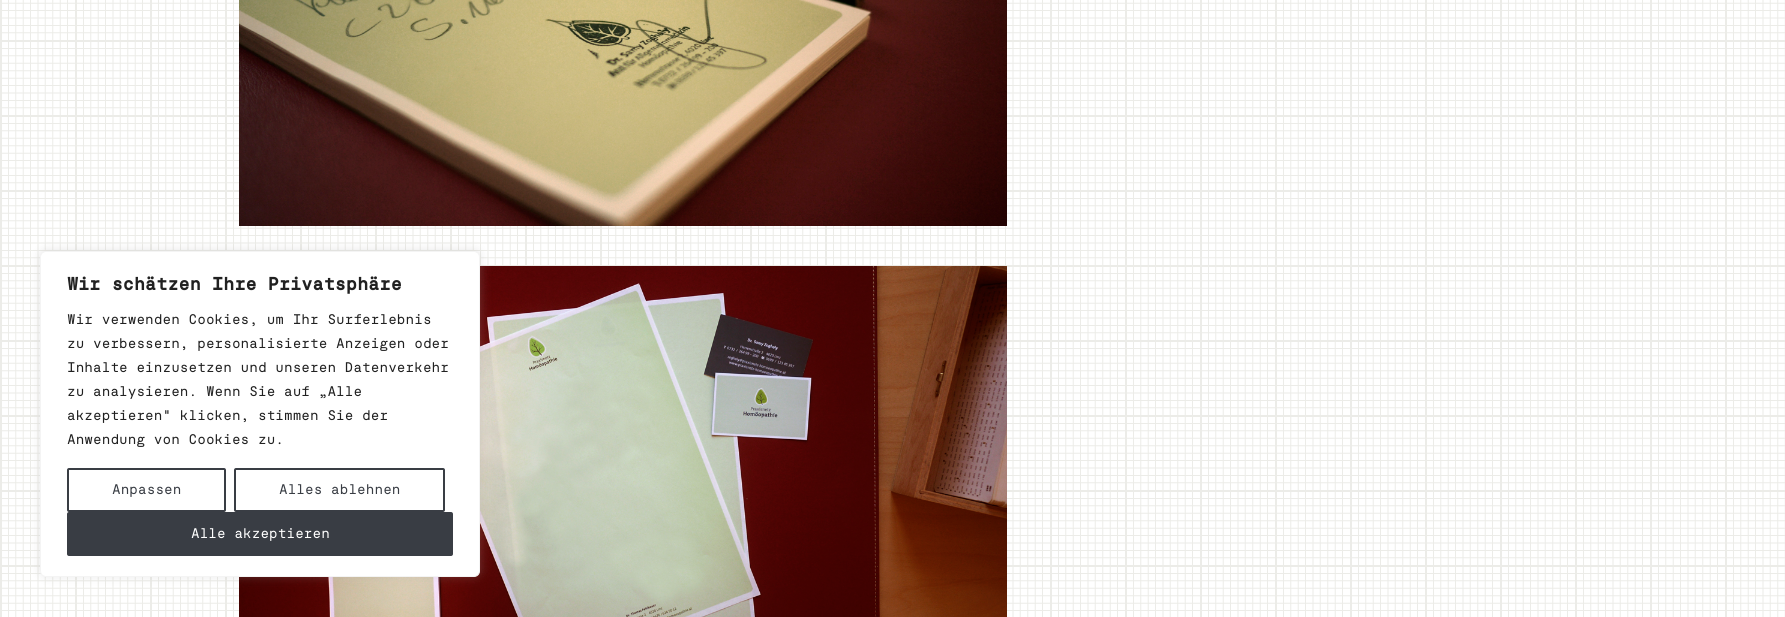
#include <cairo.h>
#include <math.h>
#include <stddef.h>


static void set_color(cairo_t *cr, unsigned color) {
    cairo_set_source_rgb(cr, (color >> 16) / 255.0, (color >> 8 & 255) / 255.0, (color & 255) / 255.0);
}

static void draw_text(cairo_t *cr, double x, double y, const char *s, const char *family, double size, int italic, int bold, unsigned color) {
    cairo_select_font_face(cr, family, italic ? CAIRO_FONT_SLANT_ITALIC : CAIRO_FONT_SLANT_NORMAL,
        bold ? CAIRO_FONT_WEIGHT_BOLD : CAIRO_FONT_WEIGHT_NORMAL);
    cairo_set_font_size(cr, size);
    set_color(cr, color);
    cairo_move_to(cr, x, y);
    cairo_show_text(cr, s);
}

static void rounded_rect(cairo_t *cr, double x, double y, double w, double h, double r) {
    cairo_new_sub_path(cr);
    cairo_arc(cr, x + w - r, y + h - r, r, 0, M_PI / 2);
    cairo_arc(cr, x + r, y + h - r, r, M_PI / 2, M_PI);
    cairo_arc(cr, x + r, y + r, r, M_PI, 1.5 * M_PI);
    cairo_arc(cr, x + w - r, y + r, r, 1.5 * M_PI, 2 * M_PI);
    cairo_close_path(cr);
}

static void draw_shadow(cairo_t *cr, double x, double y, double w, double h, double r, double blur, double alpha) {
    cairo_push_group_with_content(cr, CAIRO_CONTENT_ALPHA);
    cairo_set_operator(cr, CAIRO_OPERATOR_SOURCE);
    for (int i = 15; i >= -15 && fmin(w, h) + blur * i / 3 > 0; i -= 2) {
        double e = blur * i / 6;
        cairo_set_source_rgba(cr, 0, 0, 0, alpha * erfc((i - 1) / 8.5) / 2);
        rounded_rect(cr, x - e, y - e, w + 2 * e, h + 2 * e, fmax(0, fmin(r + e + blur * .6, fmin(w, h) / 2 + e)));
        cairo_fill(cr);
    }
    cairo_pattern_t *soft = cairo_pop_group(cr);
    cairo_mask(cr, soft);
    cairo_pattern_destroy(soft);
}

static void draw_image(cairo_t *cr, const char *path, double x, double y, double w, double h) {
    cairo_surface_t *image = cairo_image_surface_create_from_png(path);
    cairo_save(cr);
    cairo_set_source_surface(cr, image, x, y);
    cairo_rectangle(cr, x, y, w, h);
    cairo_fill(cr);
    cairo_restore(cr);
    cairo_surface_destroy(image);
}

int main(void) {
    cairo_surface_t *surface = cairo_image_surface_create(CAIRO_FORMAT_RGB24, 1785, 617);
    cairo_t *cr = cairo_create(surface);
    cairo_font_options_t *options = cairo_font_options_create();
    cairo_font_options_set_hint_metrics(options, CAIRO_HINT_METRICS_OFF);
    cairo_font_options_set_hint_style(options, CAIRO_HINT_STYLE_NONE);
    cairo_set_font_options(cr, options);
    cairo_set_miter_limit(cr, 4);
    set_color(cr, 0xFFFFFF);
    cairo_paint(cr);
    draw_image(cr, "assets/img1.png", 0, 0, 1785, 617);
    draw_image(cr, "assets/img2.png", 239, 0, 768, 226);
    draw_image(cr, "assets/img3.png", 239, 266, 768, 351);
    set_color(cr, 0xACABAB);
    draw_shadow(cr, 40, 250, 440, 326, 6, 5, 0.3);
    set_color(cr, 0xFFFFFF);
    rounded_rect(cr, 40.5, 251.5, 439, 325, 5.5);
    cairo_fill_preserve(cr);
    set_color(cr, 0xF4F4F4);
    cairo_set_line_width(cr, 1);
    cairo_stroke(cr);
    draw_text(cr, 67, 290, "Wir schätzen Ihre Privatsphäre", "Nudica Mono", 18, 0, 1, 0x212121);
    draw_text(cr, 67, 324, "Wir verwenden Cookies, um Ihr Surferlebnis", "Nudica Mono", 14, 0, 0, 0x212121);
    draw_text(cr, 67, 348, "zu verbessern, personalisierte Anzeigen oder", "Nudica Mono", 14, 0, 0, 0x212121);
    draw_text(cr, 67, 372, "Inhalte einzusetzen und unseren Datenverkehr", "Nudica Mono", 14, 0, 0, 0x212121);
    draw_text(cr, 67, 396, "zu analysieren. Wenn Sie auf „Alle", "Nudica Mono", 14, 0, 0, 0x212121);
    draw_text(cr, 67, 420, "akzeptieren\" klicken, stimmen Sie der", "Nudica Mono", 14, 0, 0, 0x212121);
    draw_text(cr, 67, 444, "Anwendung von Cookies zu.", "Nudica Mono", 14, 0, 0, 0x212121);
    rounded_rect(cr, 68, 469, 157, 42, 1);
    set_color(cr, 0x393D44);
    cairo_set_line_width(cr, 2);
    cairo_stroke(cr);
    draw_text(cr, 112, 494, "Anpassen", "Nudica Mono", 14, 0, 0, 0x393D44);
    rounded_rect(cr, 235, 469, 209, 42, 1);
    cairo_stroke(cr);
    draw_text(cr, 279, 494, "Alles ablehnen", "Nudica Mono", 14, 0, 0, 0x393D44);
    rounded_rect(cr, 68, 513, 384, 42, 1);
    cairo_fill_preserve(cr);
    cairo_stroke(cr);
    draw_text(cr, 191, 538, "Alle akzeptieren", "Nudica Mono", 14, 0, 0, 0xFFFFFF);
    cairo_surface_write_to_png(surface, "output.png");
    cairo_font_options_destroy(options);
    cairo_destroy(cr);
    cairo_surface_destroy(surface);
    return 0;
}
